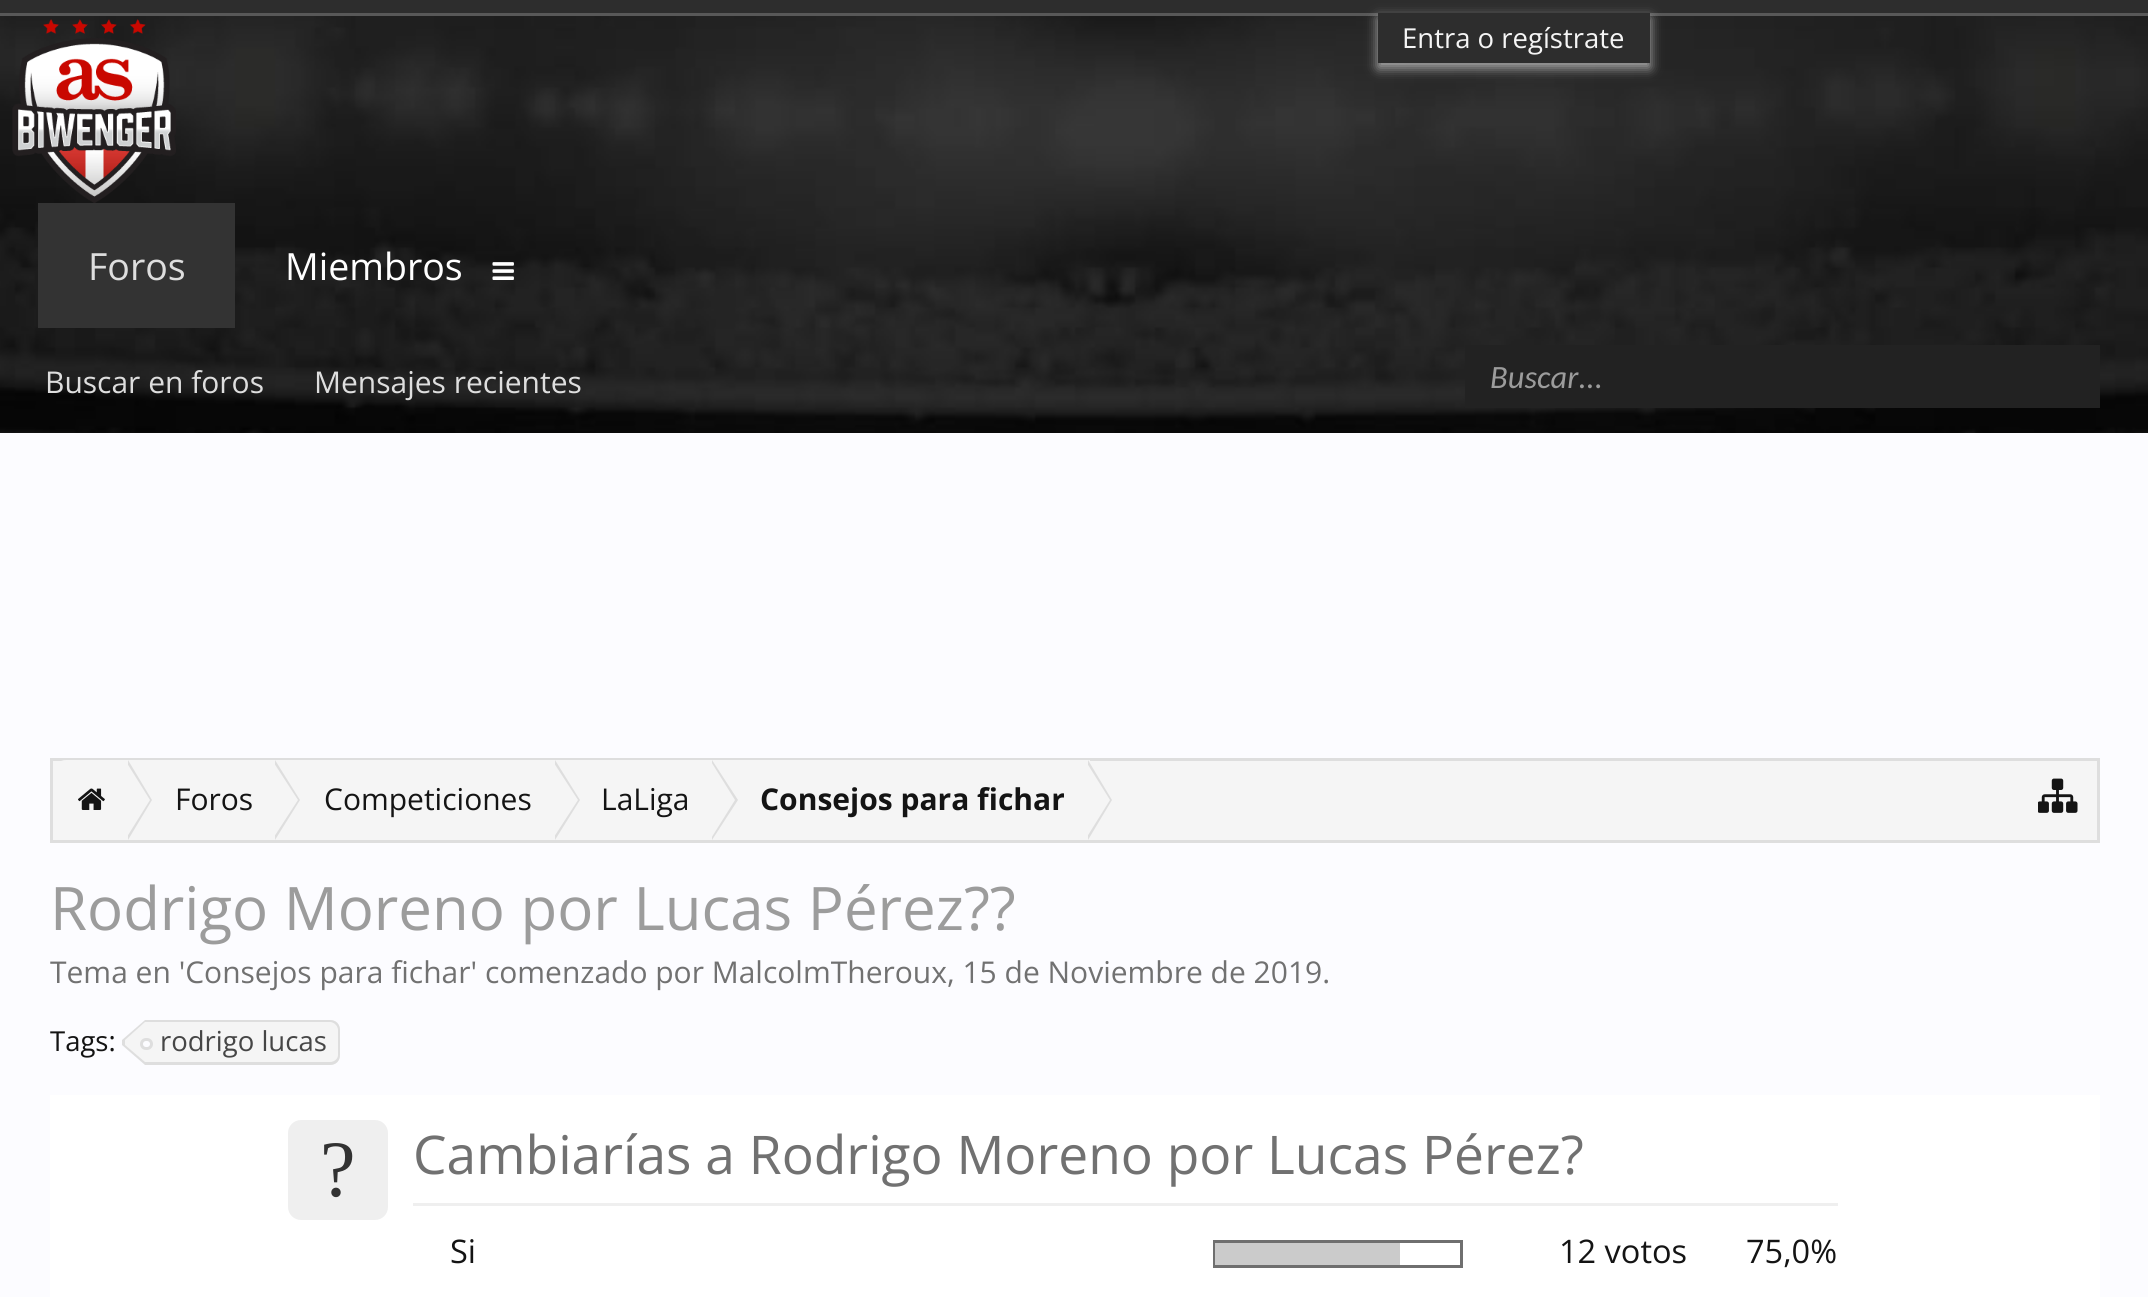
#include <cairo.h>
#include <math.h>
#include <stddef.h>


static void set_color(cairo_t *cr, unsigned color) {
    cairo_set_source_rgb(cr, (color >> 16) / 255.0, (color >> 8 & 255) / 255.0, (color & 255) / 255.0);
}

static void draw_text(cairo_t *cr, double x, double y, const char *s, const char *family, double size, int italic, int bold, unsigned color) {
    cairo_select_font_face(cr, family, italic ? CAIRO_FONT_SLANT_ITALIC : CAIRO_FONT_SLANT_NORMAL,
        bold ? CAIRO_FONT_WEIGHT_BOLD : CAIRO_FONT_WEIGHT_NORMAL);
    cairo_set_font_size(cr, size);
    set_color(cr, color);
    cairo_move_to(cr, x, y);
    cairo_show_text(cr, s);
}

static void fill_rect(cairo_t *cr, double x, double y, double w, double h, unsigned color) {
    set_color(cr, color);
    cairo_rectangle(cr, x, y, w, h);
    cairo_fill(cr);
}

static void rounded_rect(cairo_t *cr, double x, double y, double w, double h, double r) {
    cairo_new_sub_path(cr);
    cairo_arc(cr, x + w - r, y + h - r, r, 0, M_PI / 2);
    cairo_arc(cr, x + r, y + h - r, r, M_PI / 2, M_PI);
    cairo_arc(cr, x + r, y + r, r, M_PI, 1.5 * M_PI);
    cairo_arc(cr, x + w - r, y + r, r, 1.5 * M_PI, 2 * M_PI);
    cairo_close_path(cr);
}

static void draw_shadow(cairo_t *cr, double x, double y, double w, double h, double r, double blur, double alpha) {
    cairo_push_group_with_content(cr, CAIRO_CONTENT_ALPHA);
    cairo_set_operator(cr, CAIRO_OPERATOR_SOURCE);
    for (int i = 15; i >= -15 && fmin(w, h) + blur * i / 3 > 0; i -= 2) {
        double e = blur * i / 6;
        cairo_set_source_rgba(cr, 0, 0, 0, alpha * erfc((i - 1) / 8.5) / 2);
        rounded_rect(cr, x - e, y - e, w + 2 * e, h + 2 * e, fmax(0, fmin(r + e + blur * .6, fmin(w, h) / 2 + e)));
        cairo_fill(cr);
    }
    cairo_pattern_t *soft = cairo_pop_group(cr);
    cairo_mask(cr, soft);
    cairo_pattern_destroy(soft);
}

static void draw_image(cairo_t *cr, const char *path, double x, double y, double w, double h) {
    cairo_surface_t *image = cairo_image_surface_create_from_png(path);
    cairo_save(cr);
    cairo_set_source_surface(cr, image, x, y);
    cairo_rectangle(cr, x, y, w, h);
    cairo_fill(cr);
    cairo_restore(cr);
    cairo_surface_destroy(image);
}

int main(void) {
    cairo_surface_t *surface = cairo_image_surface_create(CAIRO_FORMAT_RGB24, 2148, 1297);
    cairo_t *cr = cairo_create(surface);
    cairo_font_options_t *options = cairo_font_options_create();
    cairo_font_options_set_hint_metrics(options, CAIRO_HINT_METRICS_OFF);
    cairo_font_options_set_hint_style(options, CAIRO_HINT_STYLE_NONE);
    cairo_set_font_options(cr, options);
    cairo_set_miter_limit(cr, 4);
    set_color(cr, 0xFFFFFF);
    cairo_paint(cr);
    draw_image(cr, "assets/img1.png", 0, 16, 2148, 417);
    fill_rect(cr, 0, 0, 2148, 13, 0x2D2D2D);
    fill_rect(cr, 0, 13, 2148, 3, 0x585858);
    set_color(cr, 0xAFAFAF);
    draw_shadow(cr, 1378, 18, 272, 50, 0, 6, 1);
    fill_rect(cr, 1378, 13, 272, 50, 0x2D2D2D);
    draw_text(cr, 1402, 48, "Entra o regístrate", "Open Sans", 27.5, 0, 0, 0xF5F5F5);
    draw_image(cr, "assets/img2.png", 12, 19, 164, 184);
    draw_text(cr, 285, 280, "Miembros", "Open Sans", 37.5, 0, 0, 0xFFFFFF);
    draw_image(cr, "assets/img3.png", 492, 262, 22, 18);
    fill_rect(cr, 38, 203, 197, 125, 0x333333);
    draw_text(cr, 88, 280, "Foros", "Open Sans", 37.5, 0, 0, 0xDEDEDE);
    draw_text(cr, 45, 393, "Buscar en foros", "Open Sans", 30, 0, 0, 0xDEDEDE);
    draw_text(cr, 314, 393, "Mensajes recientes", "Open Sans", 30, 0, 0, 0xDEDEDE);
    fill_rect(cr, 1465, 345, 635, 63, 0x222222);
    draw_text(cr, 1490, 388, "Buscar...", "Carlito", 32.5, 1, 0, 0x9C9C9C);
    fill_rect(cr, 0, 433, 2148, 864, 0xFCFCFF);
    set_color(cr, 0xF5F5F5);
    cairo_rectangle(cr, 51.5, 759.5, 2047, 82);
    cairo_fill_preserve(cr);
    set_color(cr, 0xDEDEDE);
    cairo_set_line_width(cr, 3);
    cairo_stroke(cr);
    cairo_save(cr);
    cairo_rectangle(cr, 53, 760, 2045, 80);
    cairo_clip(cr);
    set_color(cr, 0xF5F5F5);
    cairo_new_path(cr);
    cairo_move_to(cr, 66, 760);
    cairo_line_to(cr, 130, 760);
    cairo_line_to(cr, 130, 843);
    cairo_line_to(cr, 66, 843);
    cairo_curve_to(cr, 59, 843, 53, 837, 53, 830);
    cairo_line_to(cr, 53, 773);
    cairo_curve_to(cr, 53, 766, 59, 760, 66, 760);
    cairo_close_path(cr);
    cairo_fill(cr);
    cairo_restore(cr);
    draw_image(cr, "assets/img4.png", 78, 788, 27, 22);
    fill_rect(cr, 130, 760, 960, 1, 0xF5F5F5);
    set_color(cr, 0xDEDEDE);
    cairo_new_path(cr);
    cairo_move_to(cr, 128, 840);
    cairo_line_to(cr, 128, 760);
    cairo_line_to(cr, 152, 800);
    cairo_close_path(cr);
    cairo_fill(cr);
    set_color(cr, 0xF5F5F5);
    cairo_new_path(cr);
    cairo_move_to(cr, 125, 840);
    cairo_line_to(cr, 125, 760);
    cairo_line_to(cr, 150, 800);
    cairo_close_path(cr);
    cairo_fill(cr);
    draw_text(cr, 175, 810, "Foros", "Open Sans", 30, 0, 0, 0x141414);
    set_color(cr, 0xDEDEDE);
    cairo_new_path(cr);
    cairo_move_to(cr, 275, 840);
    cairo_line_to(cr, 275, 760);
    cairo_line_to(cr, 300, 800);
    cairo_close_path(cr);
    cairo_fill(cr);
    set_color(cr, 0xF5F5F5);
    cairo_new_path(cr);
    cairo_move_to(cr, 272, 840);
    cairo_line_to(cr, 272, 760);
    cairo_line_to(cr, 298, 800);
    cairo_close_path(cr);
    cairo_fill(cr);
    draw_text(cr, 324, 810, "Competiciones", "Open Sans", 30, 0, 0, 0x141414);
    set_color(cr, 0xDEDEDE);
    cairo_new_path(cr);
    cairo_move_to(cr, 555, 840);
    cairo_line_to(cr, 555, 760);
    cairo_line_to(cr, 580, 800);
    cairo_close_path(cr);
    cairo_fill(cr);
    set_color(cr, 0xF5F5F5);
    cairo_new_path(cr);
    cairo_move_to(cr, 552, 840);
    cairo_line_to(cr, 552, 760);
    cairo_line_to(cr, 578, 800);
    cairo_close_path(cr);
    cairo_fill(cr);
    draw_text(cr, 601, 810, "LaLiga", "Open Sans", 30, 0, 0, 0x141414);
    set_color(cr, 0xDEDEDE);
    cairo_new_path(cr);
    cairo_move_to(cr, 712, 840);
    cairo_line_to(cr, 712, 760);
    cairo_line_to(cr, 738, 800);
    cairo_close_path(cr);
    cairo_fill(cr);
    set_color(cr, 0xF5F5F5);
    cairo_new_path(cr);
    cairo_move_to(cr, 710, 840);
    cairo_line_to(cr, 710, 760);
    cairo_line_to(cr, 735, 800);
    cairo_close_path(cr);
    cairo_fill(cr);
    draw_text(cr, 760, 810, "Consejos para fichar", "Open Sans", 30, 0, 1, 0x141414);
    set_color(cr, 0xDEDEDE);
    cairo_new_path(cr);
    cairo_move_to(cr, 1088, 840);
    cairo_line_to(cr, 1088, 760);
    cairo_line_to(cr, 1112, 800);
    cairo_close_path(cr);
    cairo_fill(cr);
    set_color(cr, 0xF5F5F5);
    cairo_new_path(cr);
    cairo_move_to(cr, 1085, 840);
    cairo_line_to(cr, 1085, 760);
    cairo_line_to(cr, 1110, 800);
    cairo_close_path(cr);
    cairo_fill(cr);
    draw_image(cr, "assets/img5.png", 2038, 778, 40, 35);
    draw_text(cr, 50, 930, "Rodrigo Moreno por Lucas Pérez?\077", "Open Sans", 60, 0, 0, 0x9C9C9C);
    draw_text(cr, 50, 983, "Tema en 'Consejos para fichar' comenzado por MalcolmTheroux, 15 de Noviembre de 2019.", "Open Sans", 30, 0, 0, 0x717171);
    draw_text(cr, 50, 1051, "Tags:", "Open Sans", 27.5, 0, 0, 0x141414);
    set_color(cr, 0xF5F5F5);
    cairo_new_path(cr);
    cairo_move_to(cr, 145, 1020);
    cairo_line_to(cr, 330, 1020);
    cairo_curve_to(cr, 335.5, 1020, 340, 1024.5, 340, 1030);
    cairo_line_to(cr, 340, 1055);
    cairo_curve_to(cr, 340, 1060.5, 335.5, 1065, 330, 1065);
    cairo_line_to(cr, 145, 1065);
    cairo_close_path(cr);
    cairo_fill(cr);
    set_color(cr, 0xDEDEDE);
    cairo_set_fill_rule(cr, CAIRO_FILL_RULE_EVEN_ODD);
    cairo_new_path(cr);
    cairo_move_to(cr, 145, 1020);
    cairo_line_to(cr, 330, 1020);
    cairo_curve_to(cr, 336, 1020, 340, 1024, 340, 1030);
    cairo_line_to(cr, 340, 1055);
    cairo_curve_to(cr, 340, 1061, 336, 1065, 330, 1065);
    cairo_line_to(cr, 145, 1065);
    cairo_close_path(cr);
    cairo_move_to(cr, 145, 1022);
    cairo_line_to(cr, 330, 1022);
    cairo_curve_to(cr, 334, 1022, 338, 1026, 338, 1030);
    cairo_line_to(cr, 338, 1055);
    cairo_curve_to(cr, 338, 1059, 334, 1062, 330, 1062);
    cairo_line_to(cr, 145, 1062);
    cairo_close_path(cr);
    cairo_fill(cr);
    cairo_set_fill_rule(cr, CAIRO_FILL_RULE_WINDING);
    cairo_new_path(cr);
    cairo_move_to(cr, 145, 1020);
    cairo_line_to(cr, 145, 1065);
    cairo_line_to(cr, 122, 1045);
    cairo_line_to(cr, 122, 1040);
    cairo_close_path(cr);
    cairo_fill(cr);
    set_color(cr, 0xF5F5F5);
    cairo_new_path(cr);
    cairo_move_to(cr, 145, 1022);
    cairo_line_to(cr, 145, 1062);
    cairo_line_to(cr, 125, 1045);
    cairo_line_to(cr, 125, 1040);
    cairo_close_path(cr);
    cairo_fill(cr);
    set_color(cr, 0xFCFCFF);
    rounded_rect(cr, 141.5, 1039.5, 10, 9, 4.5);
    cairo_fill_preserve(cr);
    set_color(cr, 0xDEDEDE);
    cairo_stroke(cr);
    draw_text(cr, 160, 1051, "rodrigo lucas", "Open Sans", 27.5, 0, 0, 0x464646);
    fill_rect(cr, 50, 1095, 2050, 202, 0xFFFFFF);
    set_color(cr, 0xEFEFEF);
    rounded_rect(cr, 288, 1120, 100, 100, 13);
    cairo_fill(cr);
    draw_text(cr, 320, 1196, "?", "Liberation Serif", 80, 0, 0, 0x323232);
    draw_text(cr, 413, 1174, "Cambiarías a Rodrigo Moreno por Lucas Pérez?", "Open Sans", 53.3, 0, 0, 0x717171);
    fill_rect(cr, 413, 1203, 1425, 3, 0xEFEFEF);
    draw_text(cr, 450, 1263, "Si", "Open Sans", 32.5, 0, 0, 0x141414);
    cairo_rectangle(cr, 1214.5, 1241.5, 247, 25);
    set_color(cr, 0x6F6F6F);
    cairo_stroke(cr);
    fill_rect(cr, 1215, 1243, 185, 22, 0xCBCBCB);
    draw_text(cr, 1559, 1263, "12 votos", "Open Sans", 32.5, 0, 0, 0x141414);
    draw_text(cr, 1746, 1263, "75,0%", "Open Sans", 32.5, 0, 0, 0x141414);
    cairo_surface_write_to_png(surface, "output.png");
    cairo_font_options_destroy(options);
    cairo_destroy(cr);
    cairo_surface_destroy(surface);
    return 0;
}
